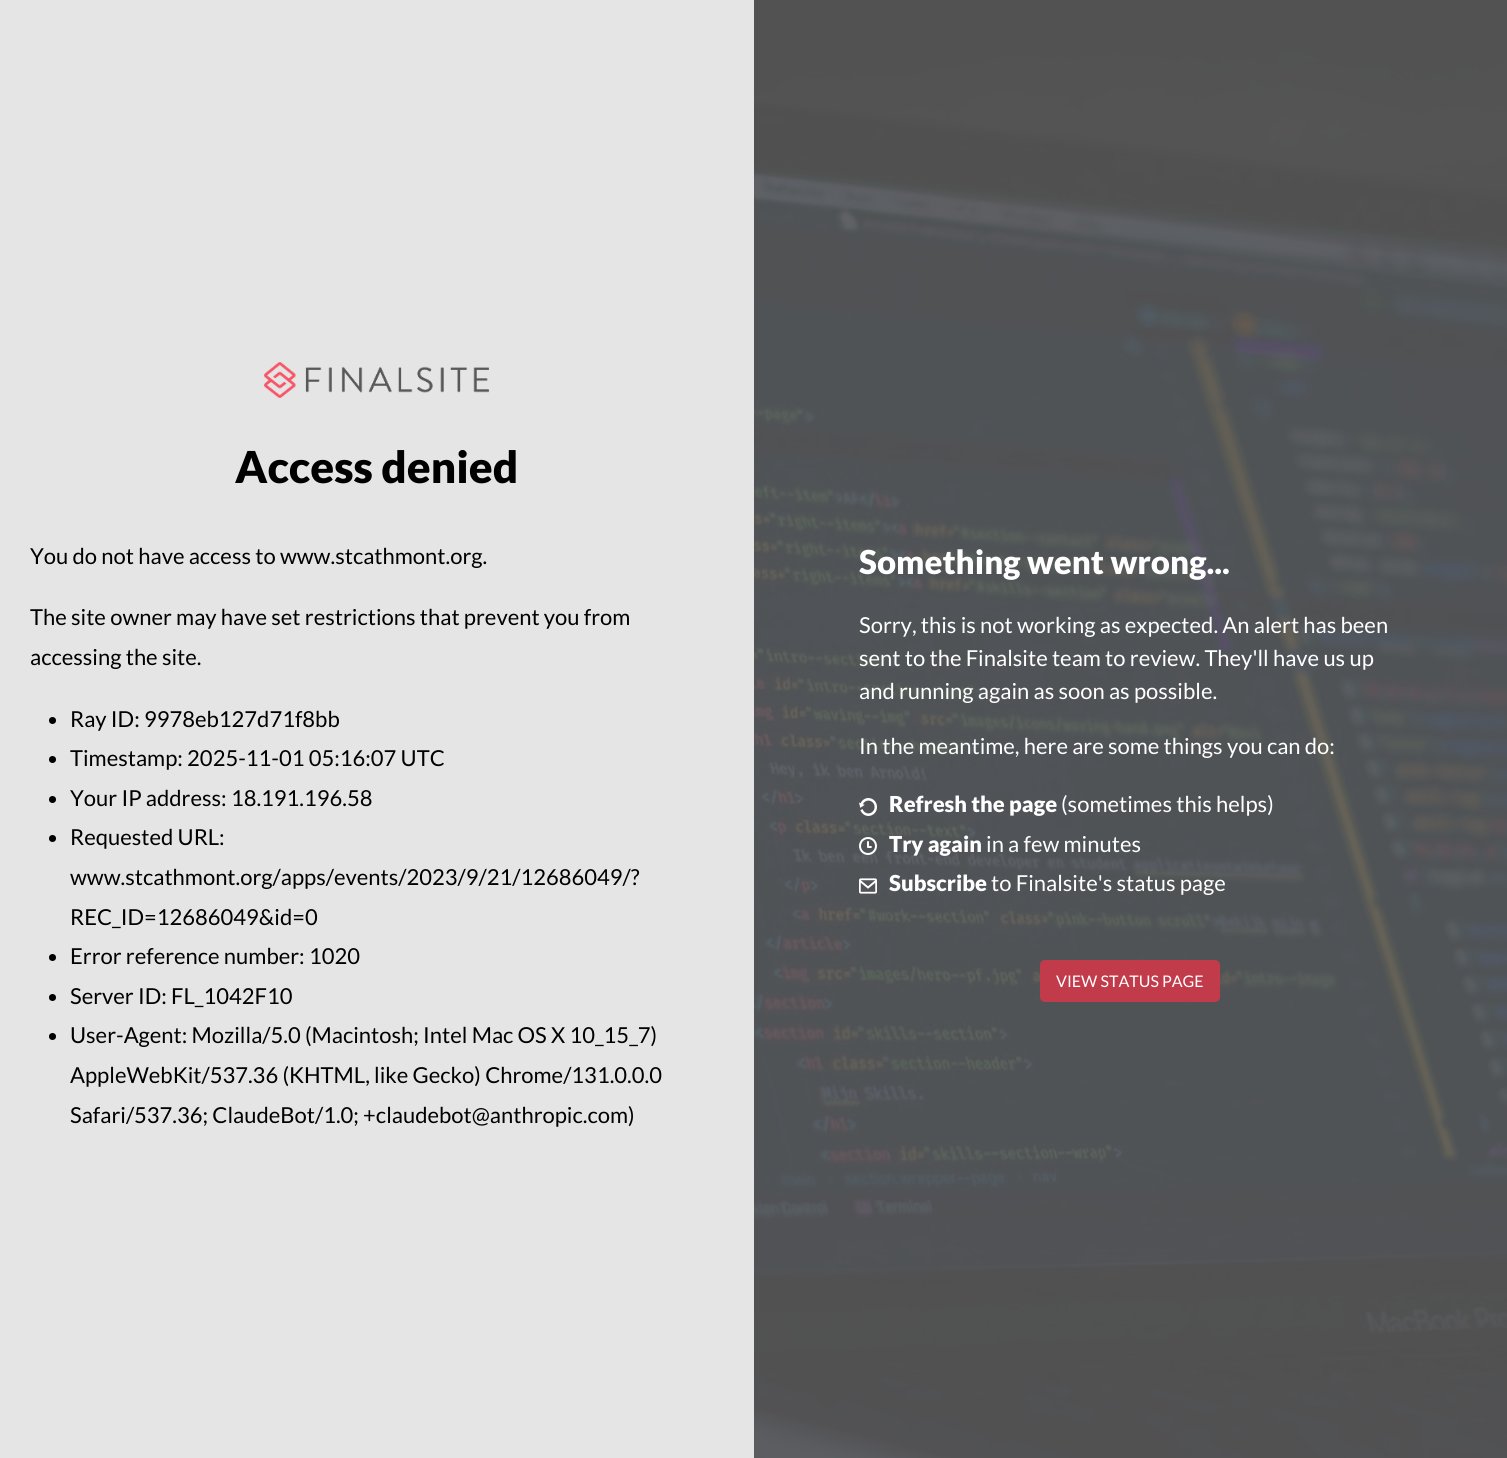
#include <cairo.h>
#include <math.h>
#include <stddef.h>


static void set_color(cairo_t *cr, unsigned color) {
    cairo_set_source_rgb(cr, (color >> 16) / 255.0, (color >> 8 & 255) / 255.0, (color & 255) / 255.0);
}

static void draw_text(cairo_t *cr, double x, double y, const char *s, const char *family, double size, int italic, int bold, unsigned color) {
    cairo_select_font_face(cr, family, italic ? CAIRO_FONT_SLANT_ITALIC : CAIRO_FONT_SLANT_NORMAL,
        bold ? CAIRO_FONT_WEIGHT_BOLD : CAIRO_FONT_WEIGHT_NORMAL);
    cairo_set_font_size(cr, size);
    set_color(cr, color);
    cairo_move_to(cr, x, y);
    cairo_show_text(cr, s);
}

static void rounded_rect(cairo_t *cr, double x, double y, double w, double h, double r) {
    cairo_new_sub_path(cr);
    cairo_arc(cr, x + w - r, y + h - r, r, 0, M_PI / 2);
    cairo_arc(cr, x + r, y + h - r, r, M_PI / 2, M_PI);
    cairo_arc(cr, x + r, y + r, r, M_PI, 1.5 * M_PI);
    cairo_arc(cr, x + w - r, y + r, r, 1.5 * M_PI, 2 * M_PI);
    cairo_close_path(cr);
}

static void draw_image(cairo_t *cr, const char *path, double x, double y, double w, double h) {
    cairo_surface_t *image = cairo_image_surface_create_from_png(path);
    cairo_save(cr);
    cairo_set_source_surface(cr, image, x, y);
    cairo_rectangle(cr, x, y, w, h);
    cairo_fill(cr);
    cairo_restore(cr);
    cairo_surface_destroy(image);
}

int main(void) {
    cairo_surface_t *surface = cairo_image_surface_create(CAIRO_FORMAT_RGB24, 1507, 1458);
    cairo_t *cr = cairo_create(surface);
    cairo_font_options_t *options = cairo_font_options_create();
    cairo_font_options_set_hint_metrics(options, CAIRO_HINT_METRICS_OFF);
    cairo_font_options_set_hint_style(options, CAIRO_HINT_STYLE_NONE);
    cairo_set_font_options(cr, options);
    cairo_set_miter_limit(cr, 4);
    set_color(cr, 0xE5E5E5);
    cairo_paint(cr);
    draw_image(cr, "assets/img1.png", 264, 362, 225, 36);
    draw_text(cr, 235, 483, "Access denied", "Lato Black", 44, 0, 0, 0x000000);
    draw_text(cr, 30, 564, "You do not have access to www.stcathmont.org.", "Lato", 22, 0, 0, 0x000000);
    draw_text(cr, 30, 625, "The site owner may have set restrictions that prevent you from", "Lato", 22, 0, 0, 0x000000);
    draw_text(cr, 30, 665, "accessing the site.", "Lato", 22, 0, 0, 0x000000);
    cairo_new_path(cr);
    cairo_arc(cr, 52.5, 720.5, 3.5, 0, 2 * M_PI);
    cairo_fill(cr);
    draw_text(cr, 70, 727, "Ray ID: 9978eb127d71f8bb", "Lato", 22, 0, 0, 0x000000);
    cairo_new_path(cr);
    cairo_arc(cr, 52.5, 759.5, 3.5, 0, 2 * M_PI);
    cairo_fill(cr);
    draw_text(cr, 70, 766, "Timestamp: 2025-11-01 05:16:07 UTC", "Lato", 22, 0, 0, 0x000000);
    cairo_new_path(cr);
    cairo_arc(cr, 52.5, 799.5, 3.5, 0, 2 * M_PI);
    cairo_fill(cr);
    draw_text(cr, 70, 806, "Your IP address: 18.191.196.58", "Lato", 22, 0, 0, 0x000000);
    cairo_new_path(cr);
    cairo_arc(cr, 52.5, 838.5, 3.5, 0, 2 * M_PI);
    cairo_fill(cr);
    draw_text(cr, 70, 845, "Requested URL:", "Lato", 22, 0, 0, 0x000000);
    draw_text(cr, 70, 885, "www.stcathmont.org/apps/events/2023/9/21/12686049/?", "Lato", 22, 0, 0, 0x000000);
    draw_text(cr, 70, 925, "REC_ID=12686049&id=0", "Lato", 22, 0, 0, 0x000000);
    cairo_new_path(cr);
    cairo_arc(cr, 52.5, 957.5, 3.5, 0, 2 * M_PI);
    cairo_fill(cr);
    draw_text(cr, 70, 964, "Error reference number: 1020", "Lato", 22, 0, 0, 0x000000);
    cairo_new_path(cr);
    cairo_arc(cr, 52.5, 997.5, 3.5, 0, 2 * M_PI);
    cairo_fill(cr);
    draw_text(cr, 70, 1004, "Server ID: FL_1042F10", "Lato", 22, 0, 0, 0x000000);
    cairo_new_path(cr);
    cairo_arc(cr, 52.5, 1036.5, 3.5, 0, 2 * M_PI);
    cairo_fill(cr);
    draw_text(cr, 70, 1043, "User-Agent: Mozilla/5.0 (Macintosh; Intel Mac OS X 10_15_7)", "Lato", 22, 0, 0, 0x000000);
    draw_text(cr, 70, 1083, "AppleWebKit/537.36 (KHTML, like Gecko) Chrome/131.0.0.0", "Lato", 22, 0, 0, 0x000000);
    draw_text(cr, 70, 1123, "Safari/537.36; ClaudeBot/1.0; +claudebot@anthropic.com)", "Lato", 22, 0, 0, 0x000000);
    draw_image(cr, "assets/img2.png", 754, 0, 753, 1458);
    draw_text(cr, 859, 574, "Something went wrong...", "Lato Black", 33, 0, 0, 0xFFFFFF);
    draw_text(cr, 859, 633, "Sorry, this is not working as expected. An alert has been", "Lato", 22, 0, 0, 0xFFFFFF);
    draw_text(cr, 859, 666, "sent to the Finalsite team to review. They'll have us up", "Lato", 22, 0, 0, 0xFFFFFF);
    draw_text(cr, 859, 699, "and running again as soon as possible.", "Lato", 22, 0, 0, 0xFFFFFF);
    draw_text(cr, 859, 754, "In the meantime, here are some things you can do:", "Lato", 22, 0, 0, 0xFFFFFF);
    draw_image(cr, "assets/img3.png", 859, 798, 18, 18);
    draw_text(cr, 889, 812, "Refresh the page", "Lato Black", 22, 0, 0, 0xFFFFFF);
    draw_text(cr, 1061, 812, "(sometimes this helps)", "Lato", 22, 0, 0, 0xFFFFFF);
    draw_image(cr, "assets/img4.png", 859, 837, 18, 18);
    draw_text(cr, 889, 852, "Try again", "Lato Black", 22, 0, 0, 0xFFFFFF);
    draw_text(cr, 986, 852, "in a few minutes", "Lato", 22, 0, 0, 0xFFFFFF);
    draw_image(cr, "assets/img5.png", 859, 878, 18, 16);
    draw_text(cr, 889, 891, "Subscribe", "Lato Black", 22, 0, 0, 0xFFFFFF);
    draw_text(cr, 991, 891, "to Finalsite's status page", "Lato", 22, 0, 0, 0xFFFFFF);
    set_color(cr, 0xC23B4A);
    rounded_rect(cr, 1040, 960, 180, 42, 5);
    cairo_fill(cr);
    draw_text(cr, 1056, 987, "VIEW STATUS PAGE", "Lato", 16, 0, 0, 0xFFFFFF);
    cairo_surface_write_to_png(surface, "output.png");
    cairo_font_options_destroy(options);
    cairo_destroy(cr);
    cairo_surface_destroy(surface);
    return 0;
}
